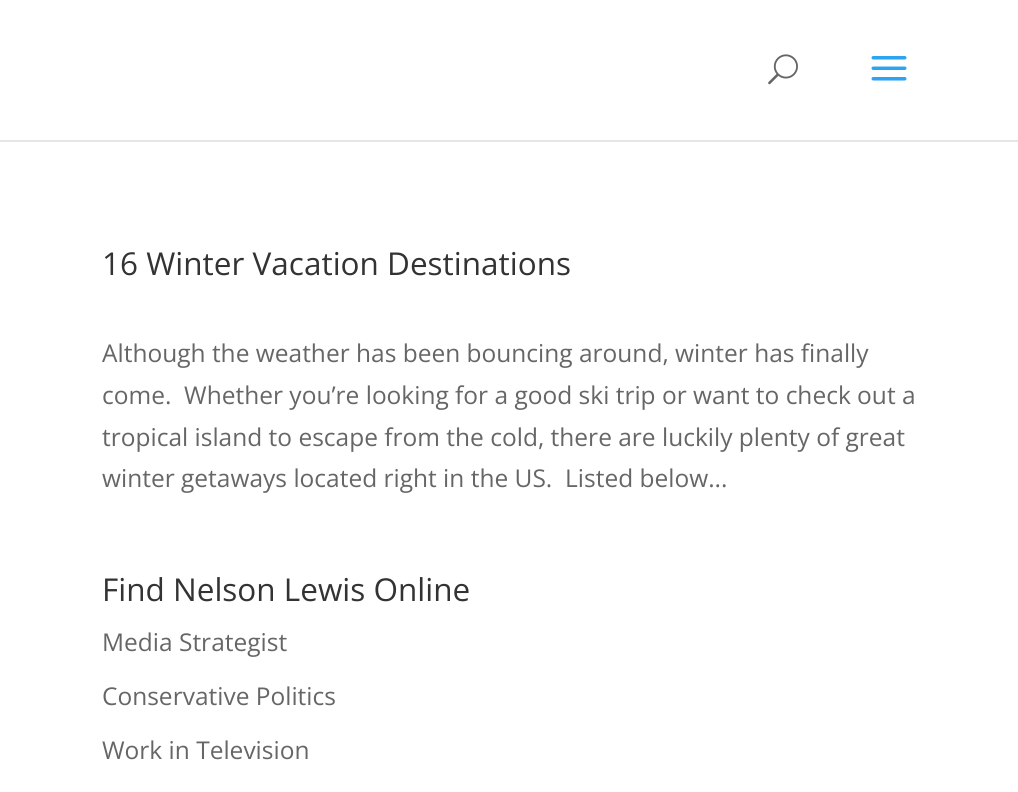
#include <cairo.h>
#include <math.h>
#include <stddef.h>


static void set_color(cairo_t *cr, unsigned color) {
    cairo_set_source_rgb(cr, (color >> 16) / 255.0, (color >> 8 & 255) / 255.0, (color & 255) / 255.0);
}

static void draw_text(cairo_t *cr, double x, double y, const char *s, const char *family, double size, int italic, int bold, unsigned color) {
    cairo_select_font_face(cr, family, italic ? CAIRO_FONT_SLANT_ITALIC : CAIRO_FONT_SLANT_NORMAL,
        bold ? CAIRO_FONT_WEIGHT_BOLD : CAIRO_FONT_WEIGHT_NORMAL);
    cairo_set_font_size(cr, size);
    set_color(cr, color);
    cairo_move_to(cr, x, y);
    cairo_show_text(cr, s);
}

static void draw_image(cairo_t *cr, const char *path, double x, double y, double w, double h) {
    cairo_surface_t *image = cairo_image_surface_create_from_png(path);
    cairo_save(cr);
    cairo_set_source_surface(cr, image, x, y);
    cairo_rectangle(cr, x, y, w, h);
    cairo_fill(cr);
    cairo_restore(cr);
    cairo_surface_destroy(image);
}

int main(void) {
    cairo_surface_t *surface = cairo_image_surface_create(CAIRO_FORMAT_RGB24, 1018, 792);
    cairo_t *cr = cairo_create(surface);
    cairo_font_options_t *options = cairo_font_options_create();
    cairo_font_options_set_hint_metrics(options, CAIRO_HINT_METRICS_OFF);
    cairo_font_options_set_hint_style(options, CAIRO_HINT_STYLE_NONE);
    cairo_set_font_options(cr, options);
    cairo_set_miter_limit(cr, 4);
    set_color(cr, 0xFFFFFF);
    cairo_paint(cr);
    set_color(cr, 0xE6E6E6);
    cairo_new_path(cr);
    cairo_move_to(cr, 0, 140);
    cairo_line_to(cr, 0, 142);
    cairo_line_to(cr, 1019, 142);
    cairo_line_to(cr, 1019, 2);
    cairo_line_to(cr, 1018, 2);
    cairo_line_to(cr, 1018, 140);
    cairo_close_path(cr);
    cairo_fill(cr);
    draw_image(cr, "assets/img1.png", 768, 54, 30, 31);
    draw_image(cr, "assets/img2.png", 871, 56, 36, 25);
    draw_text(cr, 102, 275, "16 Winter Vacation Destinations", "Open Sans", 31.5, 0, 0, 0x333333);
    draw_text(cr, 102, 362, "Although the weather has been bouncing around, winter has finally", "Open Sans", 24.5, 0, 0, 0x666666);
    draw_text(cr, 102, 404, "come.  Whether you’re looking for a good ski trip or want to check out a", "Open Sans", 24.5, 0, 0, 0x666666);
    draw_text(cr, 102, 446, "tropical island to escape from the cold, there are luckily plenty of great", "Open Sans", 24.5, 0, 0, 0x666666);
    draw_text(cr, 102, 487, "winter getaways located right in the US.  Listed below...", "Open Sans", 24.5, 0, 0, 0x666666);
    draw_text(cr, 102, 601, "Find Nelson Lewis Online", "Open Sans", 31.5, 0, 0, 0x333333);
    draw_text(cr, 102, 651, "Media Strategist", "Open Sans", 24.5, 0, 0, 0x666666);
    draw_text(cr, 102, 705, "Conservative Politics", "Open Sans", 24.5, 0, 0, 0x666666);
    draw_text(cr, 102, 759, "Work in Television", "Open Sans", 24.5, 0, 0, 0x666666);
    cairo_surface_write_to_png(surface, "output.png");
    cairo_font_options_destroy(options);
    cairo_destroy(cr);
    cairo_surface_destroy(surface);
    return 0;
}
